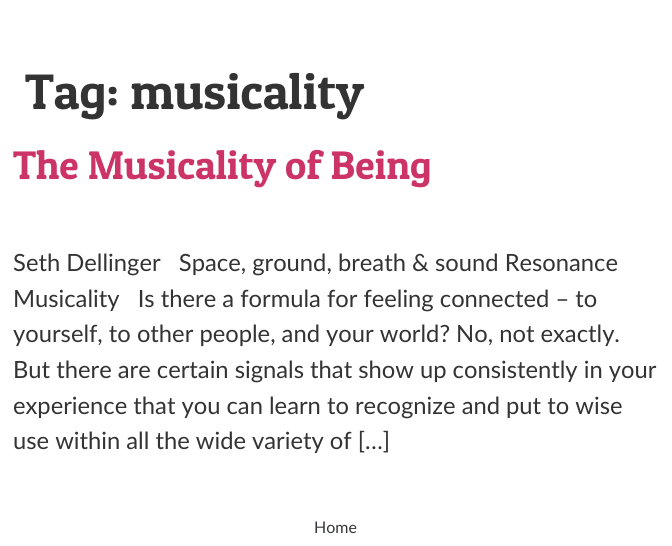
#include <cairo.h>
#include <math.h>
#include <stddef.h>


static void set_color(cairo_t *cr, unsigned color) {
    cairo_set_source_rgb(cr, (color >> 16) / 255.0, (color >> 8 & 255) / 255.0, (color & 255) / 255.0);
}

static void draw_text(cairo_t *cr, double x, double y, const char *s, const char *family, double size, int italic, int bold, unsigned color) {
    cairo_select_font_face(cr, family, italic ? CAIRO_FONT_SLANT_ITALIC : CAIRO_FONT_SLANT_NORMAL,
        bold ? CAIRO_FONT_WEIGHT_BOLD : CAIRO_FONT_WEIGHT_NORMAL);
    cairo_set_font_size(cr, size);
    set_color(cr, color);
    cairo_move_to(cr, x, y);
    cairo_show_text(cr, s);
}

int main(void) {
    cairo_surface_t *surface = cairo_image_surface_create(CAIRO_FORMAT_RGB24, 672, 546);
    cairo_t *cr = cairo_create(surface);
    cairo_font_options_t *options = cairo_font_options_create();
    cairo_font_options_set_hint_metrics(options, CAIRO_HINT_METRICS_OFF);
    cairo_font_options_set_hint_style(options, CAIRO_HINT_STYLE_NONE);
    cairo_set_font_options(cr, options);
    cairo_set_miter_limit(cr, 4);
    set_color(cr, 0xFFFFFF);
    cairo_paint(cr);
    draw_text(cr, 25, 109, "Tag: musicality", "Patua One", 50, 0, 0, 0x333333);
    draw_text(cr, 13, 179, "The Musicality of Being", "Patua One", 40, 0, 0, 0xCC3366);
    draw_text(cr, 13, 271, "Seth Dellinger   Space, ground, breath & sound Resonance", "Lato", 23.75, 0, 0, 0x333333);
    draw_text(cr, 13, 307, "Musicality   Is there a formula for feeling connected – to", "Lato", 23.75, 0, 0, 0x333333);
    draw_text(cr, 13, 342, "yourself, to other people, and your world? No, not exactly.", "Lato", 23.75, 0, 0, 0x333333);
    draw_text(cr, 13, 378, "But there are certain signals that show up consistently in your", "Lato", 23.75, 0, 0, 0x333333);
    draw_text(cr, 13, 414, "experience that you can learn to recognize and put to wise", "Lato", 23.75, 0, 0, 0x333333);
    draw_text(cr, 13, 449, "use within all the wide variety of […]", "Lato", 23.75, 0, 0, 0x333333);
    draw_text(cr, 314, 533, "Home", "Lato", 16, 0, 0, 0x33373D);
    cairo_surface_write_to_png(surface, "output.png");
    cairo_font_options_destroy(options);
    cairo_destroy(cr);
    cairo_surface_destroy(surface);
    return 0;
}
